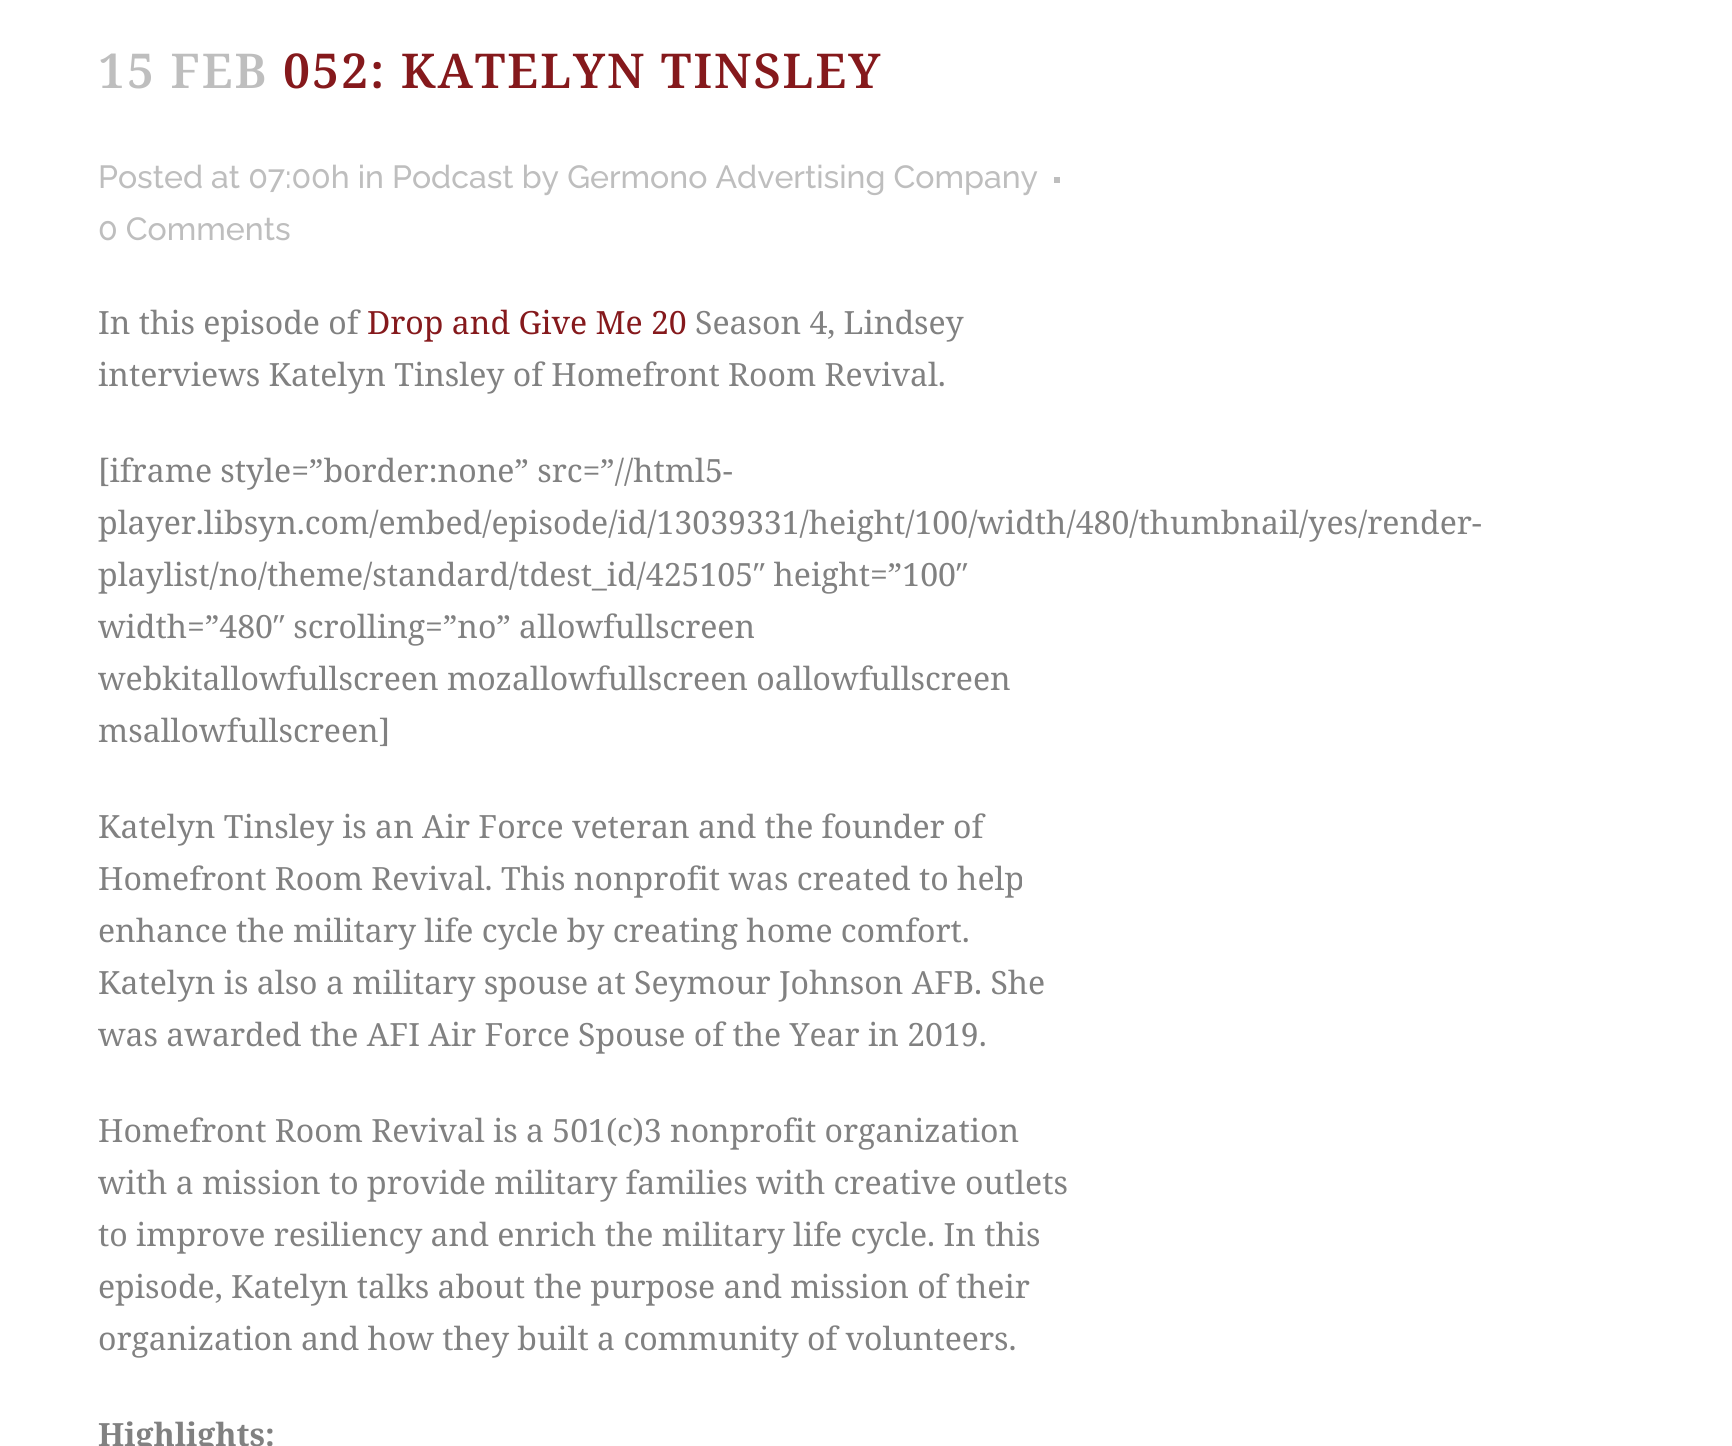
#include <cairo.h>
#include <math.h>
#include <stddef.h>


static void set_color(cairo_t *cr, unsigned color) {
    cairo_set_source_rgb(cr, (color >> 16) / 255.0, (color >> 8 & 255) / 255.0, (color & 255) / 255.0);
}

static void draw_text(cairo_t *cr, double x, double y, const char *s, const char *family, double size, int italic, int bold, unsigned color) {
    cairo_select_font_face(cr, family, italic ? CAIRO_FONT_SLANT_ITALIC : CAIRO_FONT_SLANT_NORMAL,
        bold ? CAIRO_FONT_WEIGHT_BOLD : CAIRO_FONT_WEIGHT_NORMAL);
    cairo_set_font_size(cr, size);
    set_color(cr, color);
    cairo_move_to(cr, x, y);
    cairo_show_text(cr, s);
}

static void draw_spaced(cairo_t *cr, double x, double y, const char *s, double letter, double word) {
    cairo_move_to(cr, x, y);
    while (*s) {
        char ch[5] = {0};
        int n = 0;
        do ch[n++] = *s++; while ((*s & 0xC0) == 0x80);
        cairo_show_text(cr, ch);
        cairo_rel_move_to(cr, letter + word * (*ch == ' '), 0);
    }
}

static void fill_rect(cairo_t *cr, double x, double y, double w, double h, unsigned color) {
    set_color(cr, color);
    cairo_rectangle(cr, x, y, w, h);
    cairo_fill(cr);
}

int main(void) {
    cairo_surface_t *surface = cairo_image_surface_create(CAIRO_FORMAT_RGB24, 1732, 1446);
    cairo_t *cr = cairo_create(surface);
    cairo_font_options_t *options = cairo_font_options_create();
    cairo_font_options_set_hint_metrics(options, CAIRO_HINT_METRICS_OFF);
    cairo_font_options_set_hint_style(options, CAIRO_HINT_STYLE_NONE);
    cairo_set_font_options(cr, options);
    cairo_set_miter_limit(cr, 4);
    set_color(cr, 0xFFFFFF);
    cairo_paint(cr);
    cairo_select_font_face(cr, "Noto Serif SemiBold", CAIRO_FONT_SLANT_NORMAL, CAIRO_FONT_WEIGHT_NORMAL);
    cairo_set_font_size(cr, 48);
    set_color(cr, 0xBEBEBE);
    draw_spaced(cr, 98, 88, "15 FEB", 2, 0);
    set_color(cr, 0x85191C);
    draw_spaced(cr, 283, 88, "052: KATELYN TINSLEY", 2, 0);
    draw_text(cr, 98, 188, "Posted at 07:00h in Podcast by Germono Advertising Company", "Raleway Medium", 32, 0, 0, 0xBEBEBE);
    fill_rect(cr, 1054, 177, 6, 6, 0xBEBEBE);
    draw_text(cr, 98, 240, "0 Comments", "Raleway Medium", 32, 0, 0, 0xBEBEBE);
    draw_text(cr, 98, 334, "In this episode of", "Noto Serif", 32, 0, 0, 0x818181);
    draw_text(cr, 367, 334, "Drop and Give Me 20", "Noto Serif", 32, 0, 0, 0x85191C);
    draw_text(cr, 695, 334, "Season 4, Lindsey", "Noto Serif", 32, 0, 0, 0x818181);
    draw_text(cr, 98, 386, "interviews Katelyn Tinsley of Homefront Room Revival.", "Noto Serif", 32, 0, 0, 0x818181);
    draw_text(cr, 98, 482, "[iframe style=”border:none” src=”//html5-", "Noto Serif", 32, 0, 0, 0x818181);
    draw_text(cr, 98, 534, "player.libsyn.com/embed/episode/id/13039331/height/100/width/480/thumbnail/yes/render-", "Noto Serif", 32, 0, 0, 0x818181);
    draw_text(cr, 98, 586, "playlist/no/theme/standard/tdest_id/425105″ height=”100″", "Noto Serif", 32, 0, 0, 0x818181);
    draw_text(cr, 98, 638, "width=”480″ scrolling=”no” allowfullscreen", "Noto Serif", 32, 0, 0, 0x818181);
    draw_text(cr, 98, 690, "webkitallowfullscreen mozallowfullscreen oallowfullscreen", "Noto Serif", 32, 0, 0, 0x818181);
    draw_text(cr, 98, 742, "msallowfullscreen]", "Noto Serif", 32, 0, 0, 0x818181);
    draw_text(cr, 98, 838, "Katelyn Tinsley is an Air Force veteran and the founder of", "Noto Serif", 32, 0, 0, 0x818181);
    draw_text(cr, 98, 890, "Homefront Room Revival. This nonprofit was created to help", "Noto Serif", 32, 0, 0, 0x818181);
    draw_text(cr, 98, 942, "enhance the military life cycle by creating home comfort.", "Noto Serif", 32, 0, 0, 0x818181);
    draw_text(cr, 98, 994, "Katelyn is also a military spouse at Seymour Johnson AFB. She", "Noto Serif", 32, 0, 0, 0x818181);
    draw_text(cr, 98, 1046, "was awarded the AFI Air Force Spouse of the Year in 2019.", "Noto Serif", 32, 0, 0, 0x818181);
    draw_text(cr, 98, 1142, "Homefront Room Revival is a 501(c)3 nonprofit organization", "Noto Serif", 32, 0, 0, 0x818181);
    draw_text(cr, 98, 1194, "with a mission to provide military families with creative outlets", "Noto Serif", 32, 0, 0, 0x818181);
    draw_text(cr, 98, 1246, "to improve resiliency and enrich the military life cycle. In this", "Noto Serif", 32, 0, 0, 0x818181);
    draw_text(cr, 98, 1298, "episode, Katelyn talks about the purpose and mission of their", "Noto Serif", 32, 0, 0, 0x818181);
    draw_text(cr, 98, 1350, "organization and how they built a community of volunteers.", "Noto Serif", 32, 0, 0, 0x818181);
    draw_text(cr, 98, 1446, "Highlights:", "Noto Serif", 32, 0, 1, 0x818181);
    cairo_surface_write_to_png(surface, "output.png");
    cairo_font_options_destroy(options);
    cairo_destroy(cr);
    cairo_surface_destroy(surface);
    return 0;
}
